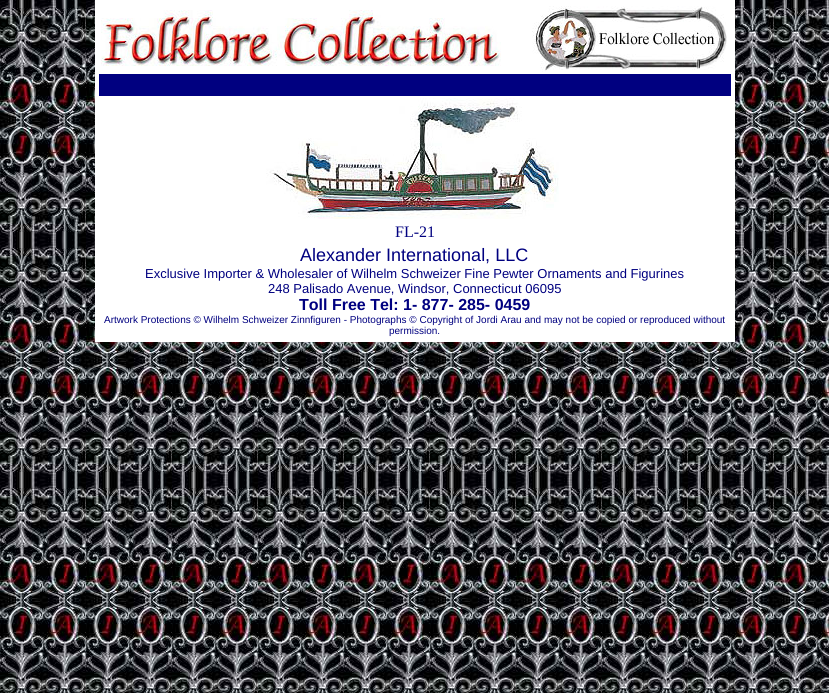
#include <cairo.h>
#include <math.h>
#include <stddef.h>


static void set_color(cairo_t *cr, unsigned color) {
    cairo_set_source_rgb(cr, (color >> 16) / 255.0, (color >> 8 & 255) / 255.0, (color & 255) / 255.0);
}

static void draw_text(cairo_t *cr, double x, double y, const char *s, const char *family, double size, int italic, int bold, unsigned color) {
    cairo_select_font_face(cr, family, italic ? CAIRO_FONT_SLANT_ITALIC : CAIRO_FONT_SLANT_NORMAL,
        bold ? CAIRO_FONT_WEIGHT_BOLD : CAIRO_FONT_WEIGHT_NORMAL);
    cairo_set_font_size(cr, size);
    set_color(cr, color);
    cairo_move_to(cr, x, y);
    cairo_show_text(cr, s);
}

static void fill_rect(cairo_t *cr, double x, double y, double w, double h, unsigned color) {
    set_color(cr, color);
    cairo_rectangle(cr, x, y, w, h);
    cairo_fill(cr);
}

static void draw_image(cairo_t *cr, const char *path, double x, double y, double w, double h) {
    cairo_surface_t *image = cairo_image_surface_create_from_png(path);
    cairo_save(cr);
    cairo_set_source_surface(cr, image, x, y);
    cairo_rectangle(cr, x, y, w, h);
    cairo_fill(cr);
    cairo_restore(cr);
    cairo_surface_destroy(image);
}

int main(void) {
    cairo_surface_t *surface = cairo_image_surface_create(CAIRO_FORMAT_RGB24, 829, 693);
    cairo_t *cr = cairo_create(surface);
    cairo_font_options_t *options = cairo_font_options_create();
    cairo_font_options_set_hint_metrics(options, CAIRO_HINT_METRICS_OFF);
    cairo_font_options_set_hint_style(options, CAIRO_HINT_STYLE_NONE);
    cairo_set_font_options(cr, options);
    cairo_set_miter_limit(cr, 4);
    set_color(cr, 0xFFFFFF);
    cairo_paint(cr);
    draw_image(cr, "assets/img1.png", 0, 0, 829, 693);
    fill_rect(cr, 95, 0, 640, 342, 0xFFFFFF);
    draw_image(cr, "assets/img2.png", 101, 10, 400, 56);
    draw_image(cr, "assets/img3.png", 532, 6, 195, 66);
    fill_rect(cr, 99, 74, 632, 22, 0x000080);
    draw_image(cr, "assets/img4.png", 266, 98, 293, 121);
    draw_text(cr, 395, 237, "FL-21", "Liberation Serif", 16, 0, 0, 0x000080);
    draw_text(cr, 300, 261, "Alexander International, LLC", "Liberation Sans", 18, 0, 0, 0x000080);
    draw_text(cr, 145, 278, "Exclusive Importer & Wholesaler of Wilhelm Schweizer Fine Pewter Ornaments and Figurines", "Liberation Sans", 13, 0, 0, 0x000080);
    draw_text(cr, 268, 293, "248 Palisado Avenue, Windsor, Connecticut 06095", "Liberation Sans", 13, 0, 0, 0x000080);
    draw_text(cr, 299, 310, "Toll Free Tel: 1- 877- 285- 0459", "Liberation Sans", 16, 0, 1, 0x000080);
    draw_text(cr, 104, 323, "Artwork Protections © Wilhelm Schweizer Zinnfiguren - Photographs © Copyright of Jordi Arau and may not be copied or reproduced without", "Liberation Sans", 10, 0, 0, 0x000080);
    draw_text(cr, 389, 334, "permission.", "Liberation Sans", 10, 0, 0, 0x000080);
    cairo_surface_write_to_png(surface, "output.png");
    cairo_font_options_destroy(options);
    cairo_destroy(cr);
    cairo_surface_destroy(surface);
    return 0;
}
